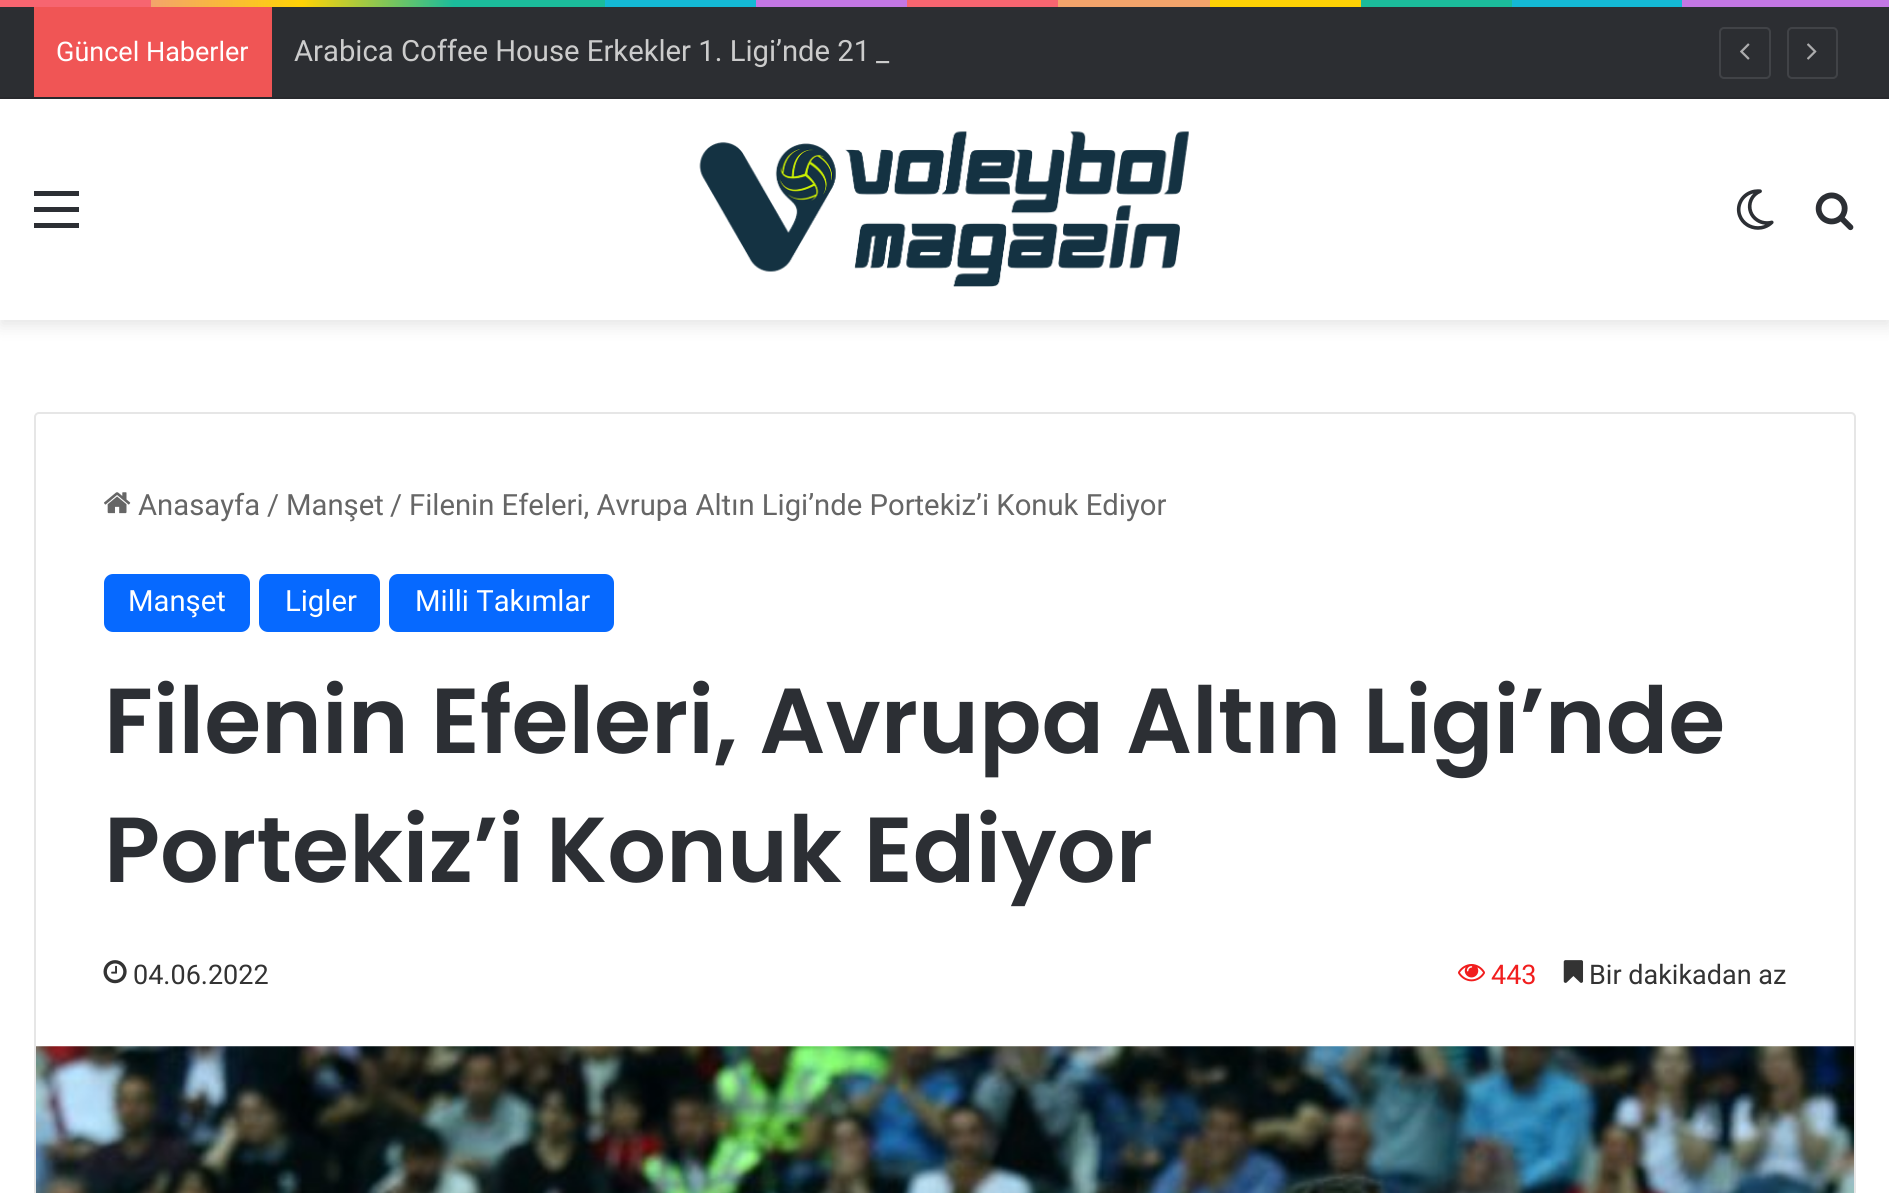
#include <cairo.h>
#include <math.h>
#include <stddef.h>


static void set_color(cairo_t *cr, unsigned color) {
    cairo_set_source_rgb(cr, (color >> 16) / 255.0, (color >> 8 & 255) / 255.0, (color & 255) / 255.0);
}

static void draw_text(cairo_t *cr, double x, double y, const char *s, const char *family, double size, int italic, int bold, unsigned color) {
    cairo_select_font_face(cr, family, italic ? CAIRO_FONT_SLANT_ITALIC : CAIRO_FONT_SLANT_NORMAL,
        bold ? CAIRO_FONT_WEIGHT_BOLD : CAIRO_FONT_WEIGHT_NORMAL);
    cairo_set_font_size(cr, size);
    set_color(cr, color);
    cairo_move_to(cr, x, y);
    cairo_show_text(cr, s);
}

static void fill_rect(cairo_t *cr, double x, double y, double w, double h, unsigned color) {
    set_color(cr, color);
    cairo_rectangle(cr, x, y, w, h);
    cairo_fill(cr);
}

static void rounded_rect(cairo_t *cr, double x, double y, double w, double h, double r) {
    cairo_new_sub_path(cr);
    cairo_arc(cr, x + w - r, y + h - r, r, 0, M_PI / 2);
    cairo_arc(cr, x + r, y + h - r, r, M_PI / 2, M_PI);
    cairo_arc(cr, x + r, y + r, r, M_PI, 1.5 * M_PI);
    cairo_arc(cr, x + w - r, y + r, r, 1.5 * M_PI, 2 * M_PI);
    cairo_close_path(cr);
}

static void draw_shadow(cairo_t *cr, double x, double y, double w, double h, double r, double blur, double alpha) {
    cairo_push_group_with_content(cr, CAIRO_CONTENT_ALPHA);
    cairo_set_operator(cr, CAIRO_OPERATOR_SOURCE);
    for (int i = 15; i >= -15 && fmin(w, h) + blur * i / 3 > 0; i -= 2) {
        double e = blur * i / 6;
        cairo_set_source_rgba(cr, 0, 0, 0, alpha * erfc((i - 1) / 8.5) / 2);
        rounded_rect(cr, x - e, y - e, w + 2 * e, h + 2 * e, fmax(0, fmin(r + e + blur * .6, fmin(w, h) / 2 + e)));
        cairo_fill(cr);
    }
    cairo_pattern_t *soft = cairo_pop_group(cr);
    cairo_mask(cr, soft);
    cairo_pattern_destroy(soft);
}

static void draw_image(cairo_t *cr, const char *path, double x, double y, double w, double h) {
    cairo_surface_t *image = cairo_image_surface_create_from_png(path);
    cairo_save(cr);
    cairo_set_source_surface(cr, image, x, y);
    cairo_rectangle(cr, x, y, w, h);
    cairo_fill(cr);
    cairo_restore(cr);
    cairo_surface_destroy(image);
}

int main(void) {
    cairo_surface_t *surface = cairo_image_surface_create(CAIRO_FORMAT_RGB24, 1889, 1193);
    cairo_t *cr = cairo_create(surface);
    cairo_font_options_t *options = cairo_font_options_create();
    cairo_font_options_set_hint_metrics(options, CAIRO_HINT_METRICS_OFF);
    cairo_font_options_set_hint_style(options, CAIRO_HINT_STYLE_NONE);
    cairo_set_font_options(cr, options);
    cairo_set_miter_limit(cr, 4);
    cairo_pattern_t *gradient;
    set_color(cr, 0xFFFFFF);
    cairo_paint(cr);
    gradient = cairo_pattern_create_linear(0, 3.4, 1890, 3.4);
    cairo_pattern_add_color_stop_rgba(gradient, 0, 0.969, 0.396, 0.439, 1);
    cairo_pattern_add_color_stop_rgba(gradient, 0.08, 0.969, 0.396, 0.439, 1);
    cairo_pattern_add_color_stop_rgba(gradient, 0.08, 0.953, 0.643, 0.42, 1);
    cairo_pattern_add_color_stop_rgba(gradient, 0.16, 1, 0.824, 0.02, 1);
    cairo_pattern_add_color_stop_rgba(gradient, 0.24, 0.106, 0.737, 0.608, 1);
    cairo_pattern_add_color_stop_rgba(gradient, 0.32, 0.106, 0.737, 0.608, 1);
    cairo_pattern_add_color_stop_rgba(gradient, 0.32, 0.078, 0.725, 0.835, 1);
    cairo_pattern_add_color_stop_rgba(gradient, 0.4, 0.078, 0.725, 0.835, 1);
    cairo_pattern_add_color_stop_rgba(gradient, 0.4, 0.765, 0.467, 0.894, 1);
    cairo_pattern_add_color_stop_rgba(gradient, 0.48, 0.765, 0.467, 0.894, 1);
    cairo_pattern_add_color_stop_rgba(gradient, 0.48, 0.969, 0.396, 0.439, 1);
    cairo_pattern_add_color_stop_rgba(gradient, 0.56, 0.969, 0.396, 0.439, 1);
    cairo_pattern_add_color_stop_rgba(gradient, 0.56, 0.953, 0.643, 0.42, 1);
    cairo_pattern_add_color_stop_rgba(gradient, 0.64, 0.953, 0.643, 0.42, 1);
    cairo_pattern_add_color_stop_rgba(gradient, 0.64, 1, 0.824, 0.02, 1);
    cairo_pattern_add_color_stop_rgba(gradient, 0.72, 1, 0.824, 0.02, 1);
    cairo_pattern_add_color_stop_rgba(gradient, 0.72, 0.106, 0.737, 0.608, 1);
    cairo_pattern_add_color_stop_rgba(gradient, 0.8, 0.106, 0.737, 0.608, 1);
    cairo_pattern_add_color_stop_rgba(gradient, 0.8, 0.078, 0.725, 0.835, 1);
    cairo_pattern_add_color_stop_rgba(gradient, 0.89, 0.078, 0.725, 0.835, 1);
    cairo_pattern_add_color_stop_rgba(gradient, 0.89, 0.765, 0.467, 0.894, 1);
    cairo_pattern_add_color_stop_rgba(gradient, 1, 0.765, 0.467, 0.894, 1);
    cairo_set_source(cr, gradient);
    cairo_pattern_destroy(gradient);
    cairo_rectangle(cr, 0, 0, 1889, 7);
    cairo_fill(cr);
    set_color(cr, 0x000000);
    draw_shadow(cr, 0, 106, 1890, 220, 0, 8, 0.1);
    fill_rect(cr, 0, 7, 1889, 90, 0x2C2E32);
    fill_rect(cr, 0, 97, 1889, 2, 0x28292D);
    fill_rect(cr, 34, 7, 238, 90, 0xF05555);
    draw_text(cr, 56, 61, "Güncel Haberler", "Roboto", 27, 0, 0, 0xFFFFFF);
    draw_text(cr, 294, 61, "Arabica Coffee House Erkekler 1. Ligi’nde 21", "Roboto", 29.25, 0, 0, 0xCCCCCC);
    draw_text(cr, 876, 61, "_", "Roboto", 29.25, 0, 0, 0xCCCCCC);
    rounded_rect(cr, 1720, 28, 50, 50, 4);
    set_color(cr, 0x414347);
    cairo_stroke(cr);
    draw_image(cr, "assets/img1.png", 1740, 43, 10, 17);
    rounded_rect(cr, 1788, 28, 49, 50, 4);
    cairo_stroke(cr);
    draw_image(cr, "assets/img2.png", 1807, 43, 10, 17);
    fill_rect(cr, 0, 99, 1889, 221, 0xFFFFFF);
    fill_rect(cr, 34, 207, 45, 5, 0x2C2F34);
    fill_rect(cr, 34, 191, 45, 5, 0x2C2F34);
    fill_rect(cr, 34, 223, 45, 5, 0x2C2F34);
    draw_image(cr, "assets/img3.png", 699, 131, 490, 156);
    draw_image(cr, "assets/img4.png", 1736, 189, 38, 41);
    draw_image(cr, "assets/img5.png", 1815, 192, 39, 39);
    rounded_rect(cr, 35, 413, 1820, 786, 4);
    set_color(cr, 0xE6E6E6);
    cairo_stroke(cr);
    draw_image(cr, "assets/img6.png", 104, 492, 27, 22);
    draw_text(cr, 138, 515, "Anasayfa", "Roboto", 29.25, 0, 0, 0x666666);
    draw_text(cr, 267, 515, "/", "Roboto", 29.25, 0, 0, 0x666666);
    draw_text(cr, 286, 515, "Manşet", "Roboto", 29.25, 0, 0, 0x666666);
    draw_text(cr, 390, 515, "/", "Roboto", 29.25, 0, 0, 0x666666);
    draw_text(cr, 409, 515, "Filenin Efeleri, Avrupa Altın Ligi’nde Portekiz’i Konuk Ediyor", "Roboto", 29.25, 0, 0, 0x666666);
    set_color(cr, 0x0669FF);
    rounded_rect(cr, 104, 574, 146, 58, 9);
    cairo_fill(cr);
    draw_text(cr, 128, 611, "Manşet", "Roboto", 29.25, 0, 0, 0xFFFFFF);
    set_color(cr, 0x0669FF);
    rounded_rect(cr, 259, 574, 121, 58, 9);
    cairo_fill(cr);
    draw_text(cr, 285, 611, "Ligler", "Roboto", 29.25, 0, 0, 0xFFFFFF);
    set_color(cr, 0x0669FF);
    rounded_rect(cr, 389, 574, 225, 58, 9);
    cairo_fill(cr);
    draw_text(cr, 415, 611, "Milli Takımlar", "Roboto", 29.25, 0, 0, 0xFFFFFF);
    draw_text(cr, 104, 753, "Filenin Efeleri, Avrupa Altın Ligi’nde", "Poppins SemiBold", 92.25, 0, 0, 0x2C2F34);
    draw_text(cr, 104, 882, "Portekiz’i Konuk Ediyor", "Poppins SemiBold", 92.25, 0, 0, 0x2C2F34);
    draw_image(cr, "assets/img7.png", 103, 960, 24, 24);
    draw_text(cr, 133, 984, "04.06.2022", "Roboto", 27, 0, 0, 0x333333);
    draw_image(cr, "assets/img8.png", 1458, 964, 27, 18);
    draw_text(cr, 1491, 984, "443", "Roboto", 27, 0, 0, 0xF11E1E);
    draw_image(cr, "assets/img9.png", 1563, 960, 21, 23);
    draw_text(cr, 1589, 984, "Bir dakikadan az", "Roboto", 27, 0, 0, 0x333333);
    draw_image(cr, "assets/img10.png", 36, 1046, 1818, 147);
    cairo_surface_write_to_png(surface, "output.png");
    cairo_font_options_destroy(options);
    cairo_destroy(cr);
    cairo_surface_destroy(surface);
    return 0;
}
